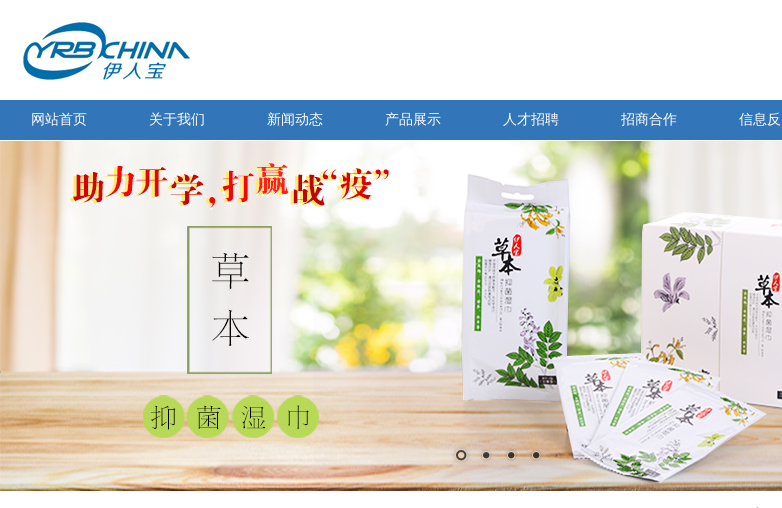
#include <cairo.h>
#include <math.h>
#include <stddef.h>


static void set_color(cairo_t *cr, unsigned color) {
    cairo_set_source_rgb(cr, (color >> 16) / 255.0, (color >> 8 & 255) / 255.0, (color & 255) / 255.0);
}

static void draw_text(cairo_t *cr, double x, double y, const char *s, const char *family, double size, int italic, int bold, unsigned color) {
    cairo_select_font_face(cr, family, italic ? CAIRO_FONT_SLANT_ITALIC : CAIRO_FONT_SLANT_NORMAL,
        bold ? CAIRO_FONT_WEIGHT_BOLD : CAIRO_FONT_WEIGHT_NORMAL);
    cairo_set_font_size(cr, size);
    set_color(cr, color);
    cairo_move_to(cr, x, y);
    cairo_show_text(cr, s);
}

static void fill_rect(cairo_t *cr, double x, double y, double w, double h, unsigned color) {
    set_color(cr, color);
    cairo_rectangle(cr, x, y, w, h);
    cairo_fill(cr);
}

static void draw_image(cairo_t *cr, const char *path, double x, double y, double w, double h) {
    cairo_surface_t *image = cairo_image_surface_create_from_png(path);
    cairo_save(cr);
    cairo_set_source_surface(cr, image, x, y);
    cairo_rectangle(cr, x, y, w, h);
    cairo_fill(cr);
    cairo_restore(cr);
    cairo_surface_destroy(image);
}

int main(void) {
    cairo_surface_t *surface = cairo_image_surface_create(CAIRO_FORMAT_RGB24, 782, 508);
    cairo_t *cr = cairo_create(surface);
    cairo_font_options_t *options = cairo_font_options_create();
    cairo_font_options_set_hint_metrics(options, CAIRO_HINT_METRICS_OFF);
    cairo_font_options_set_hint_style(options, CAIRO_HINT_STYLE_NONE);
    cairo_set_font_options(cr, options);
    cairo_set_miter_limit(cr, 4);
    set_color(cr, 0xFFFFFF);
    cairo_paint(cr);
    draw_image(cr, "assets/img1.png", 23, 21, 168, 61);
    fill_rect(cr, 0, 100, 782, 40, 0x3375B9);
    draw_text(cr, 31, 124, "网站首页", "WenQuanYi Zen Hei Medium", 14, 0, 0, 0xFFFFFF);
    draw_text(cr, 149, 124, "关于我们", "WenQuanYi Zen Hei Medium", 14, 0, 0, 0xFFFFFF);
    draw_text(cr, 267, 124, "新闻动态", "WenQuanYi Zen Hei Medium", 14, 0, 0, 0xFFFFFF);
    draw_text(cr, 385, 124, "产品展示", "WenQuanYi Zen Hei Medium", 14, 0, 0, 0xFFFFFF);
    draw_text(cr, 503, 124, "人才招聘", "WenQuanYi Zen Hei Medium", 14, 0, 0, 0xFFFFFF);
    draw_text(cr, 621, 124, "招商合作", "WenQuanYi Zen Hei Medium", 14, 0, 0, 0xFFFFFF);
    draw_text(cr, 739, 124, "信息反", "WenQuanYi Zen Hei Medium", 14, 0, 0, 0xFFFFFF);
    draw_image(cr, "assets/img2.png", 0, 141, 782, 350);
    draw_image(cr, "assets/img3.png", 756, 507, 3, 1);
    cairo_surface_write_to_png(surface, "output.png");
    cairo_font_options_destroy(options);
    cairo_destroy(cr);
    cairo_surface_destroy(surface);
    return 0;
}
